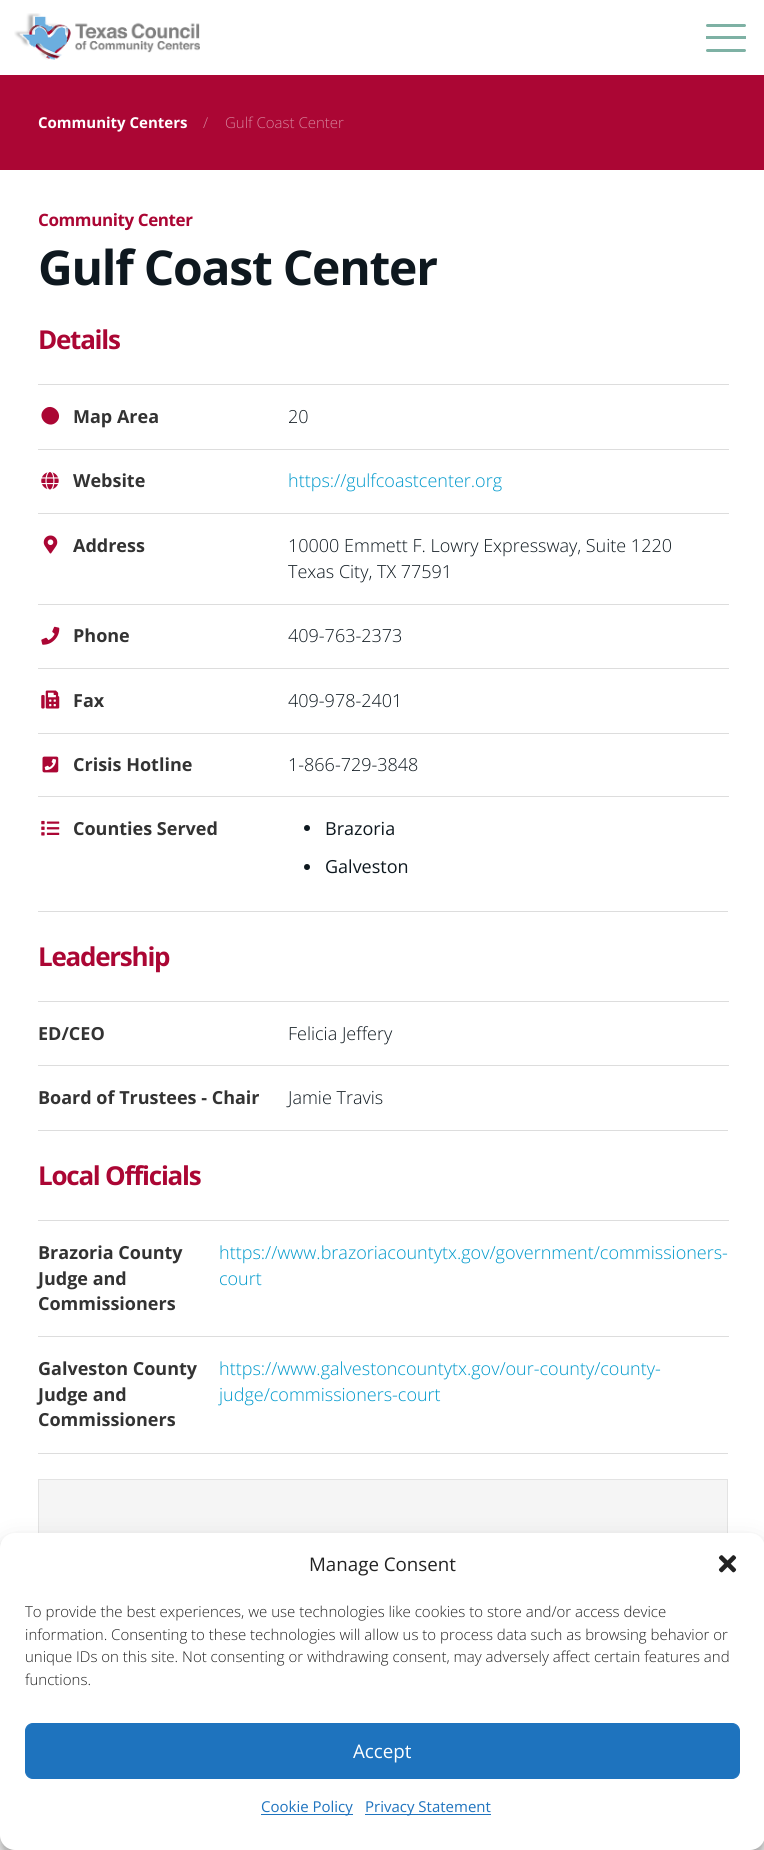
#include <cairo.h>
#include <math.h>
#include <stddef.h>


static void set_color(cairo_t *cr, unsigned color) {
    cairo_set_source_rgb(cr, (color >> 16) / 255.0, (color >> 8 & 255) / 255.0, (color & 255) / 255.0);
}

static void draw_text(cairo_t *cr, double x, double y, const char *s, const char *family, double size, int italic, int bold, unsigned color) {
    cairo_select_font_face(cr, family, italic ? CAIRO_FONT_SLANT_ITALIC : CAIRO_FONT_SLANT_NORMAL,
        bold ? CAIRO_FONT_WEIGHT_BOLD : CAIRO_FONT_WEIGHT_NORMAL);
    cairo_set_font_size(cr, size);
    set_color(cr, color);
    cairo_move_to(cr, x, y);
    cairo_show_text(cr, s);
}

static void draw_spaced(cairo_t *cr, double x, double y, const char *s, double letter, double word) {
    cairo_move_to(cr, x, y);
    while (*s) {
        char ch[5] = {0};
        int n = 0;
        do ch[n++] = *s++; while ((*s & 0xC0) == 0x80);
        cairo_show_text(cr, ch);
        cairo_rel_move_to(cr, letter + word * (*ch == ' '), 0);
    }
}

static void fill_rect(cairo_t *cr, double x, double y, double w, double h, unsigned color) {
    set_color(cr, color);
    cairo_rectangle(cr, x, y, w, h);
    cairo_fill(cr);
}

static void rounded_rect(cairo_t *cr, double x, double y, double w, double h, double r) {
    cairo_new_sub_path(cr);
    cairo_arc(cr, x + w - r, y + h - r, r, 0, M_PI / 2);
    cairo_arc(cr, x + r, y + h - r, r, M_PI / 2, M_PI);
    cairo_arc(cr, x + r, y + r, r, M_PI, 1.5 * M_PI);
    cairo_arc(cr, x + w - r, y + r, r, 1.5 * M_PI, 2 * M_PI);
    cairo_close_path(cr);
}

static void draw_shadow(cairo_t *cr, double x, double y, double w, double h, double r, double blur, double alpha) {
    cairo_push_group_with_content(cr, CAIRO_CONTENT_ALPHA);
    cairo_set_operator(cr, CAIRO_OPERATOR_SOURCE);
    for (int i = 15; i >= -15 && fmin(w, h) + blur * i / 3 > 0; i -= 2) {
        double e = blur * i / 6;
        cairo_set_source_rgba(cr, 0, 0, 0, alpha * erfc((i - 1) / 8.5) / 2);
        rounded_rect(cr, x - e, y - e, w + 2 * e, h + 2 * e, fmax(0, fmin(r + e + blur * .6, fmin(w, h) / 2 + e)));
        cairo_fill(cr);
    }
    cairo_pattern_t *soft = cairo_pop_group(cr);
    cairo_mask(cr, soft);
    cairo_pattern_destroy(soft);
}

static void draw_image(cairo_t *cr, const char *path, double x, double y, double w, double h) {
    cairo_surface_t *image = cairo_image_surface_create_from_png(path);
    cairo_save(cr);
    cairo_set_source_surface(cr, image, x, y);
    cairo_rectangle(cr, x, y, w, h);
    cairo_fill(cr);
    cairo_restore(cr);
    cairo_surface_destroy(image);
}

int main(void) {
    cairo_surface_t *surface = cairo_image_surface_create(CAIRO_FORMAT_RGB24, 764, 1850);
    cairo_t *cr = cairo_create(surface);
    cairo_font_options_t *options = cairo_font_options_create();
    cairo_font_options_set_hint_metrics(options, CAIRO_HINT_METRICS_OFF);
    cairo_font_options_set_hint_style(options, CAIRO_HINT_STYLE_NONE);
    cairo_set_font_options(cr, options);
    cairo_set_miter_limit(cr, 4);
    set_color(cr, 0xAB0634);
    cairo_paint(cr);
    fill_rect(cr, 0, 0, 764, 75, 0xFFFFFF);
    draw_image(cr, "assets/img1.png", 14, 13, 186, 47);
    fill_rect(cr, 706, 36, 40, 3, 0x7EB1A4);
    rounded_rect(cr, 706, 24, 40, 3, 1.5);
    cairo_fill(cr);
    rounded_rect(cr, 706, 49, 40, 3, 1.5);
    cairo_fill(cr);
    draw_text(cr, 38, 128, "Community Centers", "Open Sans", 15, 0, 1, 0xFFFFFF);
    draw_text(cr, 203, 128, "/", "Open Sans Light", 15, 0, 0, 0xD5839A);
    draw_text(cr, 225, 128, "Gulf Coast Center", "Open Sans Light", 15, 0, 0, 0xD5839A);
    fill_rect(cr, 0, 170, 764, 1680, 0xFFFFFF);
    cairo_select_font_face(cr, "Open Sans", CAIRO_FONT_SLANT_NORMAL, CAIRO_FONT_WEIGHT_BOLD);
    cairo_set_font_size(cr, 17);
    set_color(cr, 0xAB0634);
    draw_spaced(cr, 38, 226, "Community Center", -0.4, 0);
    cairo_set_font_size(cr, 48);
    set_color(cr, 0x0E181F);
    draw_spaced(cr, 38, 285, "Gulf Coast Center", -1.25, 0);
    cairo_set_font_size(cr, 26);
    set_color(cr, 0xAB0634);
    draw_spaced(cr, 38, 349, "Details", -1.25, 0);
    fill_rect(cr, 38, 911, 690, 1, 0xDDDDDD);
    set_color(cr, 0xAB0634);
    cairo_new_path(cr);
    cairo_move_to(cr, 44, 409.5);
    cairo_curve_to(cr, 52, 401.5, 64.5, 414, 56.5, 422);
    cairo_curve_to(cr, 48.5, 430, 36, 417.5, 44, 409.5);
    cairo_close_path(cr);
    cairo_fill(cr);
    draw_text(cr, 73, 423, "Map Area", "Open Sans", 18, 0, 1, 0x333333);
    fill_rect(cr, 38, 384, 691, 1, 0xDDDDDD);
    draw_text(cr, 288, 423, "20", "Open Sans Light", 18, 0, 0, 0x0E181F);
    draw_image(cr, "assets/img2.png", 41, 472, 18, 18);
    draw_text(cr, 73, 487, "Website", "Open Sans", 18, 0, 1, 0x333333);
    fill_rect(cr, 38, 449, 691, 1, 0xDDDDDD);
    draw_text(cr, 288, 487, "https://gulfcoastcenter.org", "Open Sans Light", 18, 0, 0, 0x0099CC);
    draw_image(cr, "assets/img3.png", 43, 535, 15, 19);
    draw_text(cr, 73, 552, "Address", "Open Sans", 18, 0, 1, 0x333333);
    fill_rect(cr, 38, 513, 691, 1, 0xDDDDDD);
    draw_text(cr, 288, 552, "10000 Emmett F. Lowry Expressway, Suite 1220", "Open Sans Light", 18, 0, 0, 0x0E181F);
    draw_text(cr, 288, 578, "Texas City, TX 77591", "Open Sans Light", 18, 0, 0, 0x0E181F);
    draw_image(cr, "assets/img4.png", 41, 626, 19, 19);
    draw_text(cr, 73, 642, "Phone", "Open Sans", 18, 0, 1, 0x333333);
    fill_rect(cr, 38, 604, 691, 1, 0xDDDDDD);
    draw_text(cr, 288, 642, "409-763-2373", "Open Sans Light", 18, 0, 0, 0x0E181F);
    draw_image(cr, "assets/img5.png", 41, 690, 19, 19);
    draw_text(cr, 73, 707, "Fax", "Open Sans", 18, 0, 1, 0x333333);
    fill_rect(cr, 38, 668, 691, 1, 0xDDDDDD);
    draw_text(cr, 288, 707, "409-978-2401", "Open Sans Light", 18, 0, 0, 0x0E181F);
    draw_image(cr, "assets/img6.png", 42, 756, 17, 17);
    draw_text(cr, 73, 771, "Crisis Hotline", "Open Sans", 18, 0, 1, 0x333333);
    fill_rect(cr, 38, 733, 691, 1, 0xDDDDDD);
    draw_text(cr, 288, 771, "1-866-729-3848", "Open Sans Light", 18, 0, 0, 0x0E181F);
    draw_image(cr, "assets/img7.png", 41, 820, 19, 16);
    draw_text(cr, 73, 835, "Counties Served", "Open Sans", 18, 0, 1, 0x333333);
    fill_rect(cr, 38, 796, 691, 1, 0xDDDDDD);
    set_color(cr, 0x0E181F);
    cairo_new_path(cr);
    cairo_arc(cr, 307, 828, 3, 0, 2 * M_PI);
    cairo_fill(cr);
    draw_text(cr, 325, 835, "Brazoria", "Open Sans", 18, 0, 0, 0x0E181F);
    cairo_new_path(cr);
    cairo_arc(cr, 307, 867, 3, 0, 2 * M_PI);
    cairo_fill(cr);
    draw_text(cr, 325, 873, "Galveston", "Open Sans", 18, 0, 0, 0x0E181F);
    cairo_select_font_face(cr, "Open Sans", CAIRO_FONT_SLANT_NORMAL, CAIRO_FONT_WEIGHT_BOLD);
    cairo_set_font_size(cr, 26);
    set_color(cr, 0xAB0634);
    draw_spaced(cr, 38, 966, "Leadership", -1.25, 0);
    fill_rect(cr, 38, 1130, 690, 1, 0xDDDDDD);
    draw_text(cr, 38, 1040, "ED/CEO", "Open Sans", 18, 0, 1, 0x333333);
    fill_rect(cr, 38, 1001, 691, 1, 0xDDDDDD);
    draw_text(cr, 288, 1040, "Felicia Jeffery", "Open Sans Light", 18, 0, 0, 0x0E181F);
    draw_text(cr, 38, 1104, "Board of Trustees - Chair", "Open Sans", 18, 0, 1, 0x333333);
    fill_rect(cr, 38, 1065, 691, 1, 0xDDDDDD);
    draw_text(cr, 288, 1104, "Jamie Travis", "Open Sans Light", 18, 0, 0, 0x0E181F);
    cairo_select_font_face(cr, "Open Sans", CAIRO_FONT_SLANT_NORMAL, CAIRO_FONT_WEIGHT_BOLD);
    cairo_set_font_size(cr, 26);
    set_color(cr, 0xAB0634);
    draw_spaced(cr, 38, 1185, "Local Officials", -1.25, 0);
    fill_rect(cr, 38, 1453, 690, 1, 0xDDDDDD);
    draw_text(cr, 38, 1259, "Brazoria County", "Open Sans", 18, 0, 1, 0x333333);
    draw_text(cr, 38, 1285, "Judge and", "Open Sans", 18, 0, 1, 0x333333);
    draw_text(cr, 38, 1310, "Commissioners", "Open Sans", 18, 0, 1, 0x333333);
    fill_rect(cr, 38, 1220, 691, 1, 0xDDDDDD);
    draw_text(cr, 219, 1259, "https://www.brazoriacountytx.gov/government/commissioners-", "Open Sans Light", 18, 0, 0, 0x0099CC);
    draw_text(cr, 219, 1285, "court", "Open Sans Light", 18, 0, 0, 0x0099CC);
    draw_text(cr, 38, 1375, "Galveston County", "Open Sans", 18, 0, 1, 0x333333);
    draw_text(cr, 38, 1401, "Judge and", "Open Sans", 18, 0, 1, 0x333333);
    draw_text(cr, 38, 1426, "Commissioners", "Open Sans", 18, 0, 1, 0x333333);
    fill_rect(cr, 38, 1336, 691, 1, 0xDDDDDD);
    draw_text(cr, 219, 1375, "https://www.galvestoncountytx.gov/our-county/county-", "Open Sans Light", 18, 0, 0, 0x0099CC);
    draw_text(cr, 219, 1401, "judge/commissioners-court", "Open Sans Light", 18, 0, 0, 0x0099CC);
    fill_rect(cr, 39, 1480, 688, 53, 0xF5F5F5);
    cairo_rectangle(cr, 38.5, 1479.5, 689, 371);
    set_color(cr, 0xE3E3E3);
    cairo_set_line_width(cr, 1);
    cairo_stroke(cr);
    set_color(cr, 0x000000);
    draw_shadow(cr, 0, 1540, 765, 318, 15, 4, 0.23);
    draw_shadow(cr, 0, 1545, 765, 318, 15, 12.5, 0.19);
    set_color(cr, 0xFFFFFF);
    rounded_rect(cr, 0, 1533, 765, 317, 15);
    cairo_fill(cr);
    draw_text(cr, 309, 1571, "Manage Consent", "Open Sans", 18.75, 0, 0, 0x222222);
    draw_image(cr, "assets/img8.png", 718, 1555, 19, 18);
    draw_text(cr, 25, 1617, "To provide the best experiences, we use technologies like cookies to store and/or access device", "Open Sans Light", 15, 0, 0, 0x222222);
    draw_text(cr, 25, 1640, "information. Consenting to these technologies will allow us to process data such as browsing behavior or", "Open Sans Light", 15, 0, 0, 0x222222);
    draw_text(cr, 25, 1662, "unique IDs on this site. Not consenting or withdrawing consent, may adversely affect certain features and", "Open Sans Light", 15, 0, 0, 0x222222);
    draw_text(cr, 25, 1685, "functions.", "Open Sans Light", 15, 0, 0, 0x222222);
    set_color(cr, 0x1E73BE);
    rounded_rect(cr, 25.5, 1723.5, 714, 55, 7.5);
    cairo_fill_preserve(cr);
    cairo_stroke(cr);
    draw_text(cr, 353, 1758, "Accept", "Open Sans", 18.75, 0, 0, 0xFFFFFF);
    fill_rect(cr, 261, 1814, 92, 1, 0x1E73BE);
    draw_text(cr, 261, 1812, "Cookie Policy", "Open Sans", 15, 0, 0, 0x1E73BE);
    fill_rect(cr, 365, 1814, 126, 1, 0x1E73BE);
    draw_text(cr, 365, 1812, "Privacy Statement", "Open Sans", 15, 0, 0, 0x1E73BE);
    cairo_surface_write_to_png(surface, "output.png");
    cairo_font_options_destroy(options);
    cairo_destroy(cr);
    cairo_surface_destroy(surface);
    return 0;
}
